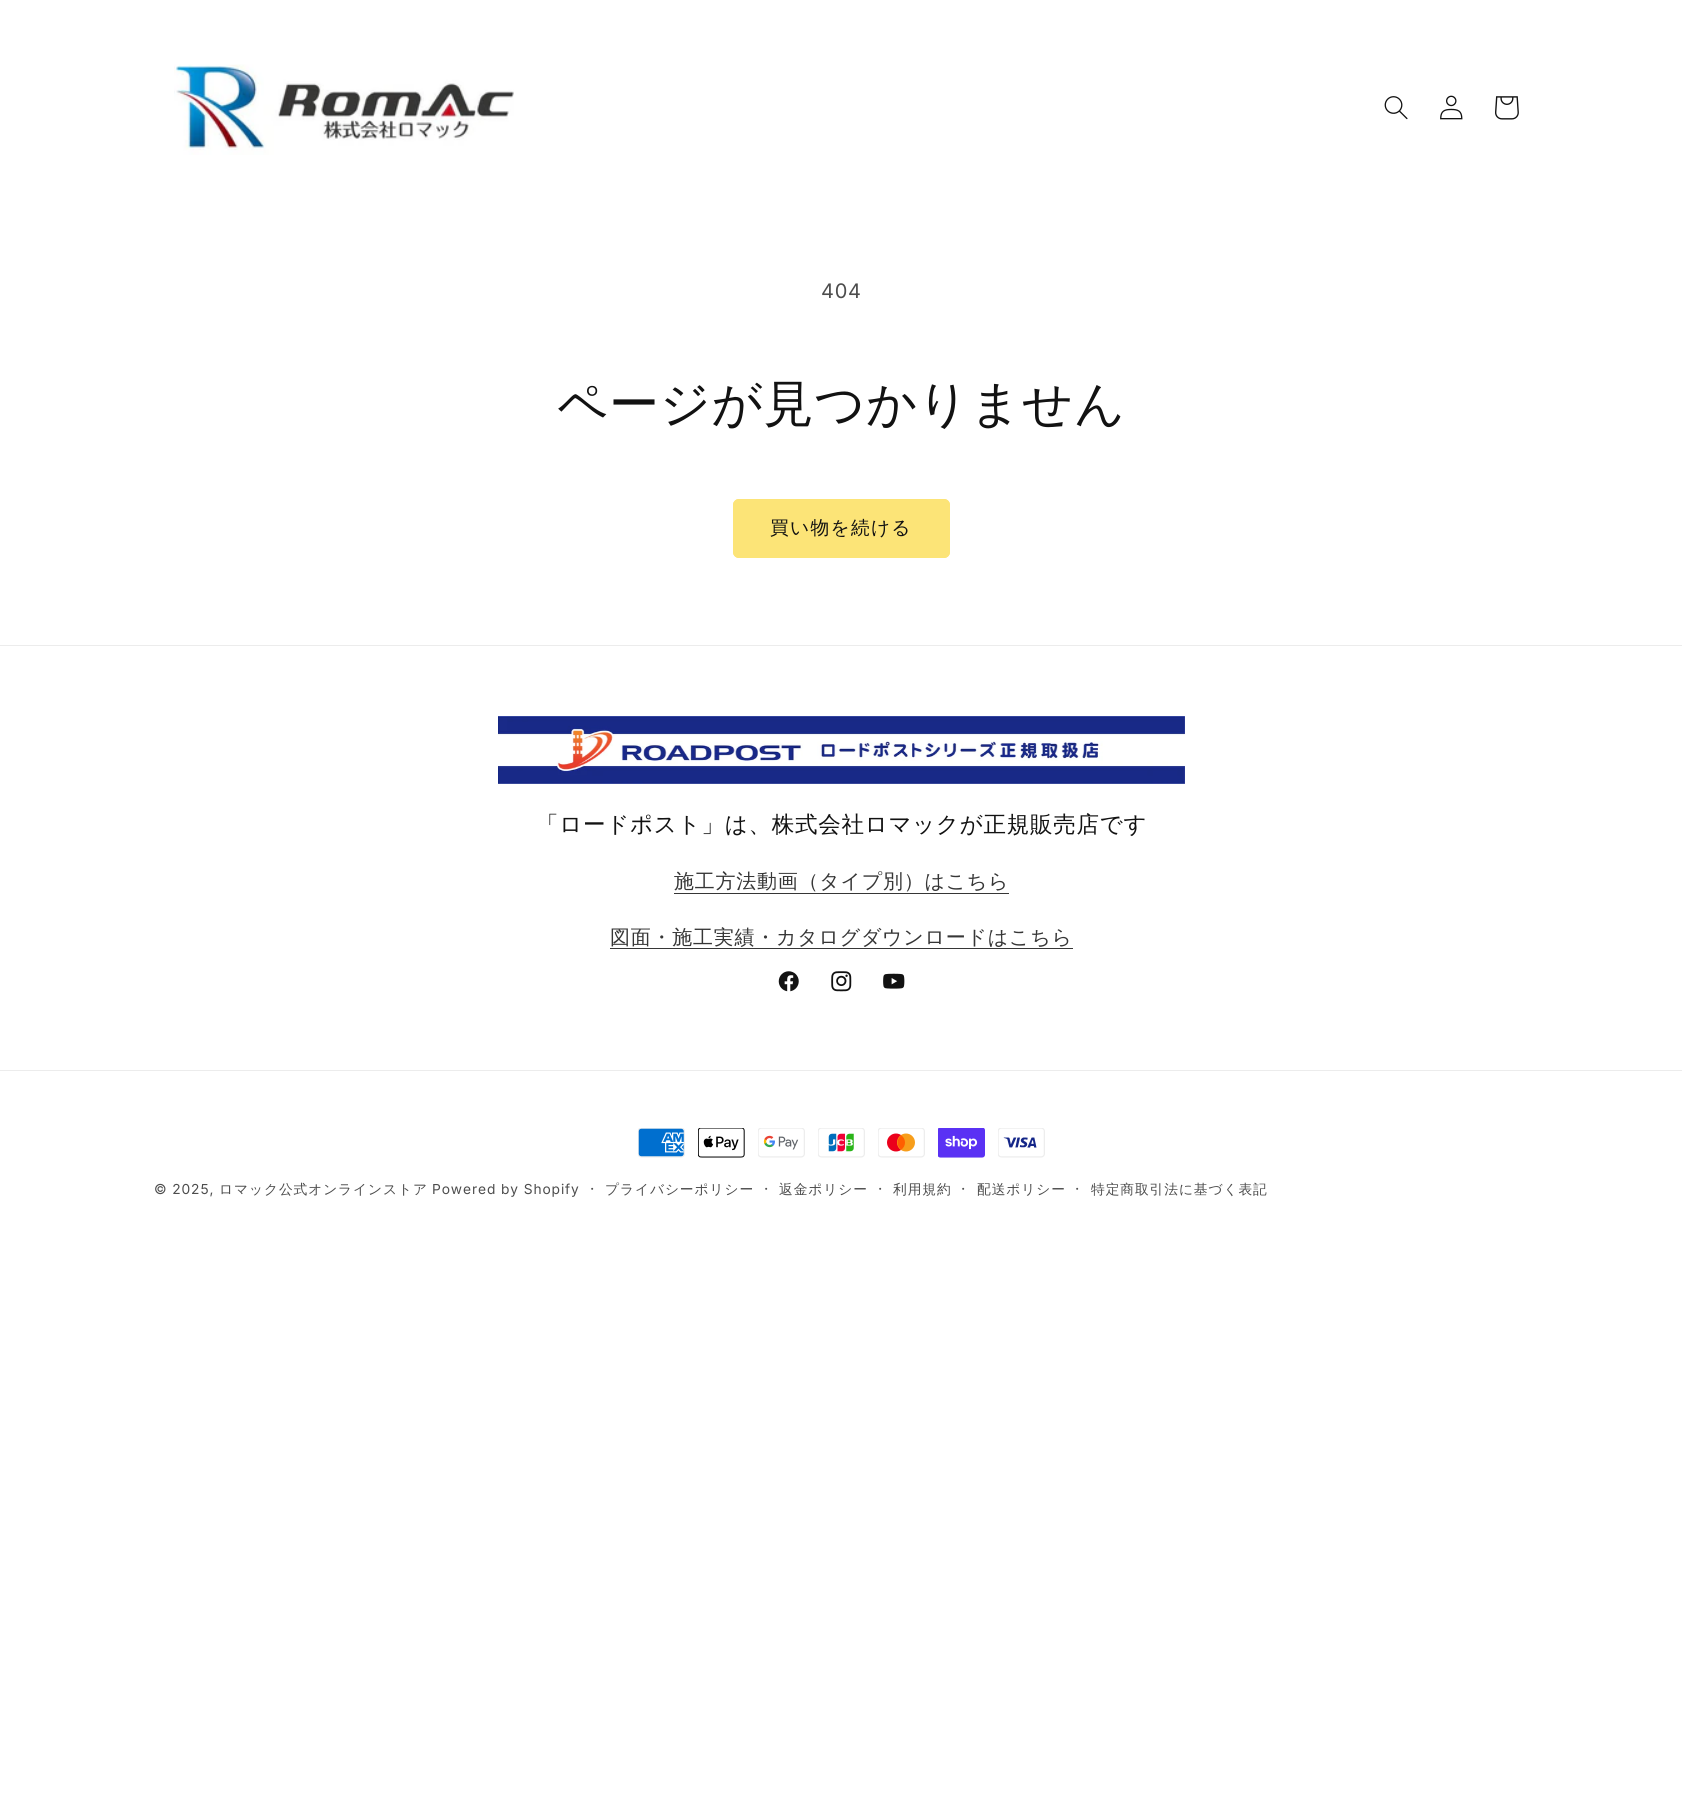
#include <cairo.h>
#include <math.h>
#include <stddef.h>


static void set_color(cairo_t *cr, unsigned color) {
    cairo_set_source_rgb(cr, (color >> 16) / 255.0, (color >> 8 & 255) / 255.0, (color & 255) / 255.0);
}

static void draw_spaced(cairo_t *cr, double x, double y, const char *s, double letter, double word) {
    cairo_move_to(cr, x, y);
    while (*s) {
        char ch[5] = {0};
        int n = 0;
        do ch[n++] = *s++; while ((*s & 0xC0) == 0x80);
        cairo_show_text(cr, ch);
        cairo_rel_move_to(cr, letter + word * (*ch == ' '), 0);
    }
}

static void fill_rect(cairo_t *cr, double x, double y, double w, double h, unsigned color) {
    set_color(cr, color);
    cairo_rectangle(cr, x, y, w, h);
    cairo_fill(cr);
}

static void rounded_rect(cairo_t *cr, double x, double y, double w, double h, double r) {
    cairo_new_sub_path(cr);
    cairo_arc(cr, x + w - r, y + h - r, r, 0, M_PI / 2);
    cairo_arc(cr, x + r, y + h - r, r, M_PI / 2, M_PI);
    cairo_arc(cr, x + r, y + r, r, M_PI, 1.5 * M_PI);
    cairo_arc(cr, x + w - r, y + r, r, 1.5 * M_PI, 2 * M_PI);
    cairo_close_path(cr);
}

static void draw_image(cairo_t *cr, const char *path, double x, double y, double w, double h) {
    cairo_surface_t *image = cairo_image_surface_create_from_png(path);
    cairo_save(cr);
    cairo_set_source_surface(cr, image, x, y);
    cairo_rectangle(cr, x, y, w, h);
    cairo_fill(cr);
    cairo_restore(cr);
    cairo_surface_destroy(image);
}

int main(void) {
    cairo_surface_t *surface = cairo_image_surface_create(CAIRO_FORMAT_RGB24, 1682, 1801);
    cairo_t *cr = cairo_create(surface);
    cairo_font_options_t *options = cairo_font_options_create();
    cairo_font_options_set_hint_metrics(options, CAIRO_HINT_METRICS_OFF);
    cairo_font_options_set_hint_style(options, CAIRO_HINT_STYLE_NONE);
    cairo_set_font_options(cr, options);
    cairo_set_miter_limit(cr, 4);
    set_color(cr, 0xFFFFFF);
    cairo_paint(cr);
    draw_image(cr, "assets/img1.png", 174, 64, 340, 91);
    draw_image(cr, "assets/img2.png", 1384, 96, 24, 24);
    draw_image(cr, "assets/img3.png", 1440, 95, 23, 25);
    draw_image(cr, "assets/img4.png", 1495, 96, 24, 24);
    cairo_select_font_face(cr, "Inter", CAIRO_FONT_SLANT_NORMAL, CAIRO_FONT_WEIGHT_NORMAL);
    cairo_set_font_size(cr, 20);
    set_color(cr, 0x4D4D4D);
    draw_spaced(cr, 821, 298, "404", 0.75, 0);
    cairo_select_font_face(cr, "WenQuanYi Zen Hei Medium", CAIRO_FONT_SLANT_NORMAL, CAIRO_FONT_WEIGHT_NORMAL);
    cairo_set_font_size(cr, 50);
    set_color(cr, 0x121212);
    draw_spaced(cr, 557, 421, "ページが見つかりません", 0.75, 0);
    set_color(cr, 0xFCE477);
    rounded_rect(cr, 733, 499, 217, 59, 6);
    cairo_fill(cr);
    rounded_rect(cr, 733.5, 499.5, 216, 58, 5.5);
    cairo_set_line_width(cr, 1);
    cairo_stroke(cr);
    cairo_set_font_size(cr, 18.75);
    set_color(cr, 0x121212);
    draw_spaced(cr, 770, 534, "買い物を続ける", 1.25, 0);
    fill_rect(cr, 0, 645, 1682, 1, 0xECECEC);
    draw_image(cr, "assets/img5.png", 498, 716, 687, 68);
    cairo_set_font_size(cr, 22.5);
    set_color(cr, 0x121212);
    draw_spaced(cr, 536, 832, "「ロードポスト」は、株式会社ロマックが正規販売店です", 0.75, 0);
    cairo_set_font_size(cr, 20);
    set_color(cr, 0x363636);
    draw_spaced(cr, 674, 888, "施工方法動画（タイプ別）はこちら", 0.75, 0);
    fill_rect(cr, 674, 893, 335, 1, 0x363636);
    draw_spaced(cr, 610, 944, "図面・施工実績・カタログダウンロードはこちら", 0.75, 0);
    fill_rect(cr, 610, 948, 463, 1, 0x363636);
    draw_image(cr, "assets/img6.png", 778, 971, 21, 21);
    draw_image(cr, "assets/img7.png", 831, 971, 21, 21);
    draw_image(cr, "assets/img8.png", 883, 973, 22, 16);
    fill_rect(cr, 0, 1070, 1682, 1, 0xECECEC);
    draw_image(cr, "assets/img9.png", 638, 1128, 47, 30);
    draw_image(cr, "assets/img10.png", 698, 1128, 47, 30);
    draw_image(cr, "assets/img11.png", 758, 1128, 47, 30);
    draw_image(cr, "assets/img12.png", 818, 1128, 47, 30);
    draw_image(cr, "assets/img13.png", 878, 1128, 47, 30);
    draw_image(cr, "assets/img14.png", 938, 1128, 47, 30);
    draw_image(cr, "assets/img15.png", 998, 1128, 47, 30);
    cairo_select_font_face(cr, "Inter", CAIRO_FONT_SLANT_NORMAL, CAIRO_FONT_WEIGHT_NORMAL);
    cairo_set_font_size(cr, 13.75);
    set_color(cr, 0x4D4D4D);
    draw_spaced(cr, 154, 1194, "© 2025,", 0.9, 0);
    cairo_select_font_face(cr, "WenQuanYi Zen Hei Medium", CAIRO_FONT_SLANT_NORMAL, CAIRO_FONT_WEIGHT_NORMAL);
    draw_spaced(cr, 219, 1194, "ロマック公式オンラインストア", 0.9, 0);
    cairo_select_font_face(cr, "Inter", CAIRO_FONT_SLANT_NORMAL, CAIRO_FONT_WEIGHT_NORMAL);
    draw_spaced(cr, 432, 1194, "Powered by Shopify", 0.9, 0);
    cairo_set_font_size(cr, 15);
    draw_spaced(cr, 590, 1194, "·", 0.9, 0);
    cairo_select_font_face(cr, "WenQuanYi Zen Hei Medium", CAIRO_FONT_SLANT_NORMAL, CAIRO_FONT_WEIGHT_NORMAL);
    cairo_set_font_size(cr, 13.75);
    draw_spaced(cr, 605, 1194, "プライバシーポリシー", 0.9, 0);
    cairo_select_font_face(cr, "Inter", CAIRO_FONT_SLANT_NORMAL, CAIRO_FONT_WEIGHT_NORMAL);
    cairo_set_font_size(cr, 15);
    draw_spaced(cr, 764, 1194, "·", 0.9, 0);
    cairo_select_font_face(cr, "WenQuanYi Zen Hei Medium", CAIRO_FONT_SLANT_NORMAL, CAIRO_FONT_WEIGHT_NORMAL);
    cairo_set_font_size(cr, 13.75);
    draw_spaced(cr, 779, 1194, "返金ポリシー", 0.9, 0);
    cairo_select_font_face(cr, "Inter", CAIRO_FONT_SLANT_NORMAL, CAIRO_FONT_WEIGHT_NORMAL);
    cairo_set_font_size(cr, 15);
    draw_spaced(cr, 878, 1194, "·", 0.9, 0);
    cairo_select_font_face(cr, "WenQuanYi Zen Hei Medium", CAIRO_FONT_SLANT_NORMAL, CAIRO_FONT_WEIGHT_NORMAL);
    cairo_set_font_size(cr, 13.75);
    draw_spaced(cr, 893, 1194, "利用規約", 0.9, 0);
    cairo_select_font_face(cr, "Inter", CAIRO_FONT_SLANT_NORMAL, CAIRO_FONT_WEIGHT_NORMAL);
    cairo_set_font_size(cr, 15);
    draw_spaced(cr, 961, 1194, "·", 0.9, 0);
    cairo_select_font_face(cr, "WenQuanYi Zen Hei Medium", CAIRO_FONT_SLANT_NORMAL, CAIRO_FONT_WEIGHT_NORMAL);
    cairo_set_font_size(cr, 13.75);
    draw_spaced(cr, 977, 1194, "配送ポリシー", 0.9, 0);
    cairo_select_font_face(cr, "Inter", CAIRO_FONT_SLANT_NORMAL, CAIRO_FONT_WEIGHT_NORMAL);
    cairo_set_font_size(cr, 15);
    draw_spaced(cr, 1075, 1194, "·", 0.9, 0);
    cairo_select_font_face(cr, "WenQuanYi Zen Hei Medium", CAIRO_FONT_SLANT_NORMAL, CAIRO_FONT_WEIGHT_NORMAL);
    cairo_set_font_size(cr, 13.75);
    draw_spaced(cr, 1091, 1194, "特定商取引法に基づく表記", 0.9, 0);
    cairo_surface_write_to_png(surface, "output.png");
    cairo_font_options_destroy(options);
    cairo_destroy(cr);
    cairo_surface_destroy(surface);
    return 0;
}
